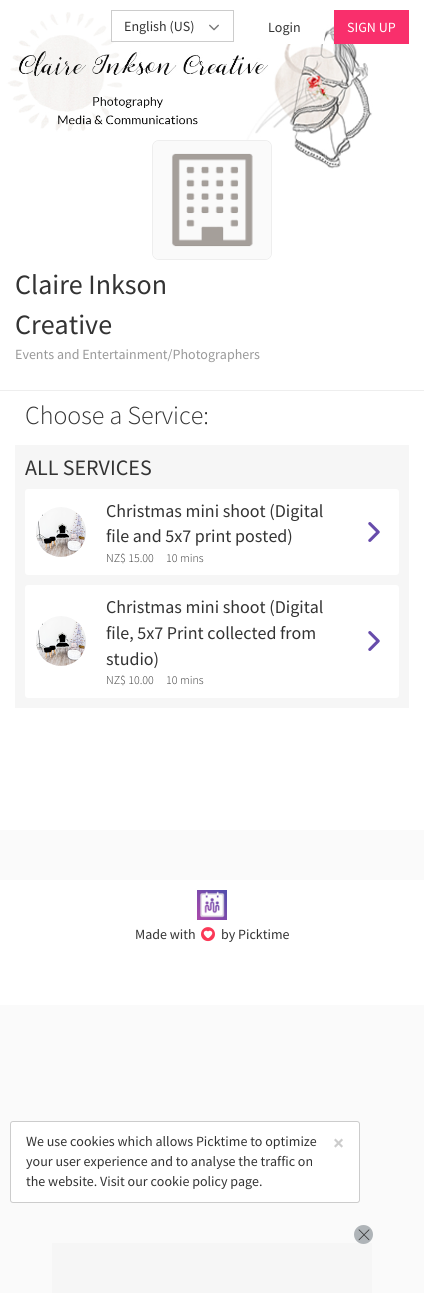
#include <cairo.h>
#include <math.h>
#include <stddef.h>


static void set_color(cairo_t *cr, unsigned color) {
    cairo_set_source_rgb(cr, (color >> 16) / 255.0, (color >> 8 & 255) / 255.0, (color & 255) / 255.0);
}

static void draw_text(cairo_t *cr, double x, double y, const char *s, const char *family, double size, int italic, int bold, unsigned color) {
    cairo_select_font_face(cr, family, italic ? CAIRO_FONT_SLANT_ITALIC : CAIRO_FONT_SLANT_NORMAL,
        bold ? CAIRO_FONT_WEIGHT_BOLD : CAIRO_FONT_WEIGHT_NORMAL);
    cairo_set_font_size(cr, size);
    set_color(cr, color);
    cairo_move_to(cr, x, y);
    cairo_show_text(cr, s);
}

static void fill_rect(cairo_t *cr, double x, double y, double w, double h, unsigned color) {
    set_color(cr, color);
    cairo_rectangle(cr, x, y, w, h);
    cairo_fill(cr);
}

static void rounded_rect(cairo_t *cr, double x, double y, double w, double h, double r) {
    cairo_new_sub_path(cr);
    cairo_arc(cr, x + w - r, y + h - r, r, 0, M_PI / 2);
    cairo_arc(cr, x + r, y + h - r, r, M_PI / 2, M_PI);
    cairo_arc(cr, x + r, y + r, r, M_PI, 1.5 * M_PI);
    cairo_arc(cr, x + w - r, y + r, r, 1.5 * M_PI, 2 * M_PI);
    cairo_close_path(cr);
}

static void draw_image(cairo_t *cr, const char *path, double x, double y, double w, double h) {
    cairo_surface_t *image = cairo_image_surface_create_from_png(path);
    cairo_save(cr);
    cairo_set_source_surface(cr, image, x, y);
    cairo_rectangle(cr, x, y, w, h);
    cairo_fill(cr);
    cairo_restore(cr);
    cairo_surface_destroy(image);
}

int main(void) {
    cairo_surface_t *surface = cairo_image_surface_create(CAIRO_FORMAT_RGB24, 424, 1293);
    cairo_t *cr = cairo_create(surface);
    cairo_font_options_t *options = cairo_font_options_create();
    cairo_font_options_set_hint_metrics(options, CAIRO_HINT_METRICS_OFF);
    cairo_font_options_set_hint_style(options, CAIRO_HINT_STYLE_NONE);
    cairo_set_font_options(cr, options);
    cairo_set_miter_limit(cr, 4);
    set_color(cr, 0xFAFAFA);
    cairo_paint(cr);
    draw_image(cr, "assets/img1.png", 0, 0, 424, 200);
    fill_rect(cr, 112, 38, 3, 3, 0xFFFFFF);
    cairo_rectangle(cr, 111.5, 10.5, 122, 31);
    set_color(cr, 0xCCCCCC);
    cairo_set_line_width(cr, 1);
    cairo_stroke(cr);
    draw_text(cr, 124, 31, "English (US)", "Source Sans Pro", 14, 0, 0, 0x333333);
    draw_image(cr, "assets/img2.png", 209, 24, 10, 7);
    fill_rect(cr, 287, 36, 37, 8, 0xFFFFFF);
    draw_text(cr, 268, 32, "Login", "Source Sans Pro", 14, 0, 0, 0x333333);
    fill_rect(cr, 334, 10, 75, 34, 0xF92F6C);
    draw_text(cr, 347, 32, "SIGN UP", "Source Sans Pro", 14, 0, 0, 0xFFFFFF);
    fill_rect(cr, 0, 200, 424, 630, 0xFFFFFF);
    rounded_rect(cr, 152.5, 140.5, 119, 119, 6.5);
    set_color(cr, 0xEEEEEE);
    cairo_stroke(cr);
    draw_image(cr, "assets/img3.png", 153, 141, 118, 118);
    fill_rect(cr, 0, 390, 424, 1, 0xEEEEEE);
    draw_text(cr, 15, 294, "Claire Inkson", "Source Sans Pro", 28, 0, 0, 0x333333);
    draw_text(cr, 15, 334, "Creative", "Source Sans Pro", 28, 0, 0, 0x333333);
    draw_text(cr, 15, 359, "Events and Entertainment/Photographers", "Source Sans Pro", 14, 0, 0, 0x999999);
    draw_text(cr, 25, 424, "Choose a Service:", "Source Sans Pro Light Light", 26, 0, 0, 0x333333);
    fill_rect(cr, 15, 445, 394, 263, 0xF6F6F6);
    draw_text(cr, 25, 475, "ALL SERVICES", "Source Sans Pro", 22, 0, 0, 0x333333);
    set_color(cr, 0xFFFFFF);
    rounded_rect(cr, 25, 489, 374, 86, 3);
    cairo_fill(cr);
    draw_image(cr, "assets/img4.png", 36, 507, 50, 50);
    draw_text(cr, 106, 517, "Christmas mini shoot (Digital", "Source Sans Pro", 18, 0, 0, 0x333333);
    draw_text(cr, 106, 542, "file and 5x7 print posted)", "Source Sans Pro", 18, 0, 0, 0x333333);
    draw_text(cr, 106, 562, "NZ$ 15.00", "Source Sans Pro Light Light", 12, 0, 0, 0x333333);
    draw_text(cr, 166, 562, "10 mins", "Source Sans Pro Light Light", 12, 0, 0, 0x333333);
    draw_image(cr, "assets/img5.png", 368, 522, 12, 20);
    set_color(cr, 0xFFFFFF);
    rounded_rect(cr, 25, 585, 374, 113, 3);
    cairo_fill(cr);
    draw_image(cr, "assets/img4.png", 36, 616, 50, 50);
    draw_text(cr, 106, 613, "Christmas mini shoot (Digital", "Source Sans Pro", 18, 0, 0, 0x333333);
    draw_text(cr, 106, 639, "file, 5x7 Print collected from", "Source Sans Pro", 18, 0, 0, 0x333333);
    draw_text(cr, 106, 665, "studio)", "Source Sans Pro", 18, 0, 0, 0x333333);
    draw_text(cr, 106, 684, "NZ$ 10.00", "Source Sans Pro Light Light", 12, 0, 0, 0x333333);
    draw_text(cr, 166, 684, "10 mins", "Source Sans Pro Light Light", 12, 0, 0, 0x333333);
    draw_image(cr, "assets/img5.png", 368, 631, 12, 20);
    fill_rect(cr, 0, 880, 424, 125, 0xFFFFFF);
    draw_image(cr, "assets/img6.png", 197, 890, 30, 30);
    draw_text(cr, 135, 939, "Made with", "Source Sans Pro", 14, 0, 0, 0x333333);
    draw_image(cr, "assets/img7.png", 201, 927, 14, 15);
    draw_text(cr, 221, 939, "by Picktime", "Source Sans Pro", 14, 0, 0, 0x333333);
    set_color(cr, 0xFFFFFF);
    rounded_rect(cr, 10.5, 1121.5, 349, 81, 2.5);
    cairo_fill_preserve(cr);
    set_color(cr, 0xCCCCCC);
    cairo_stroke(cr);
    draw_text(cr, 26, 1146, "We use cookies which allows Picktime to optimize", "Source Sans Pro", 14, 0, 0, 0x333333);
    draw_text(cr, 333, 1150, "×", "Source Sans Pro", 21, 0, 1, 0xCCCCCC);
    draw_text(cr, 26, 1166, "your user experience and to analyse the traffic on", "Source Sans Pro", 14, 0, 0, 0x333333);
    draw_text(cr, 26, 1186, "the website. Visit our cookie policy page.", "Source Sans Pro", 14, 0, 0, 0x333333);
    fill_rect(cr, 52, 1243, 320, 50, 0xF6F6F6);
    set_color(cr, 0xAFB4B8);
    cairo_new_path(cr);
    cairo_arc(cr, 363.5, 1234.5, 9.5, 0, 2 * M_PI);
    cairo_fill(cr);
    draw_image(cr, "assets/img8.png", 358, 1229, 12, 12);
    cairo_surface_write_to_png(surface, "output.png");
    cairo_font_options_destroy(options);
    cairo_destroy(cr);
    cairo_surface_destroy(surface);
    return 0;
}
